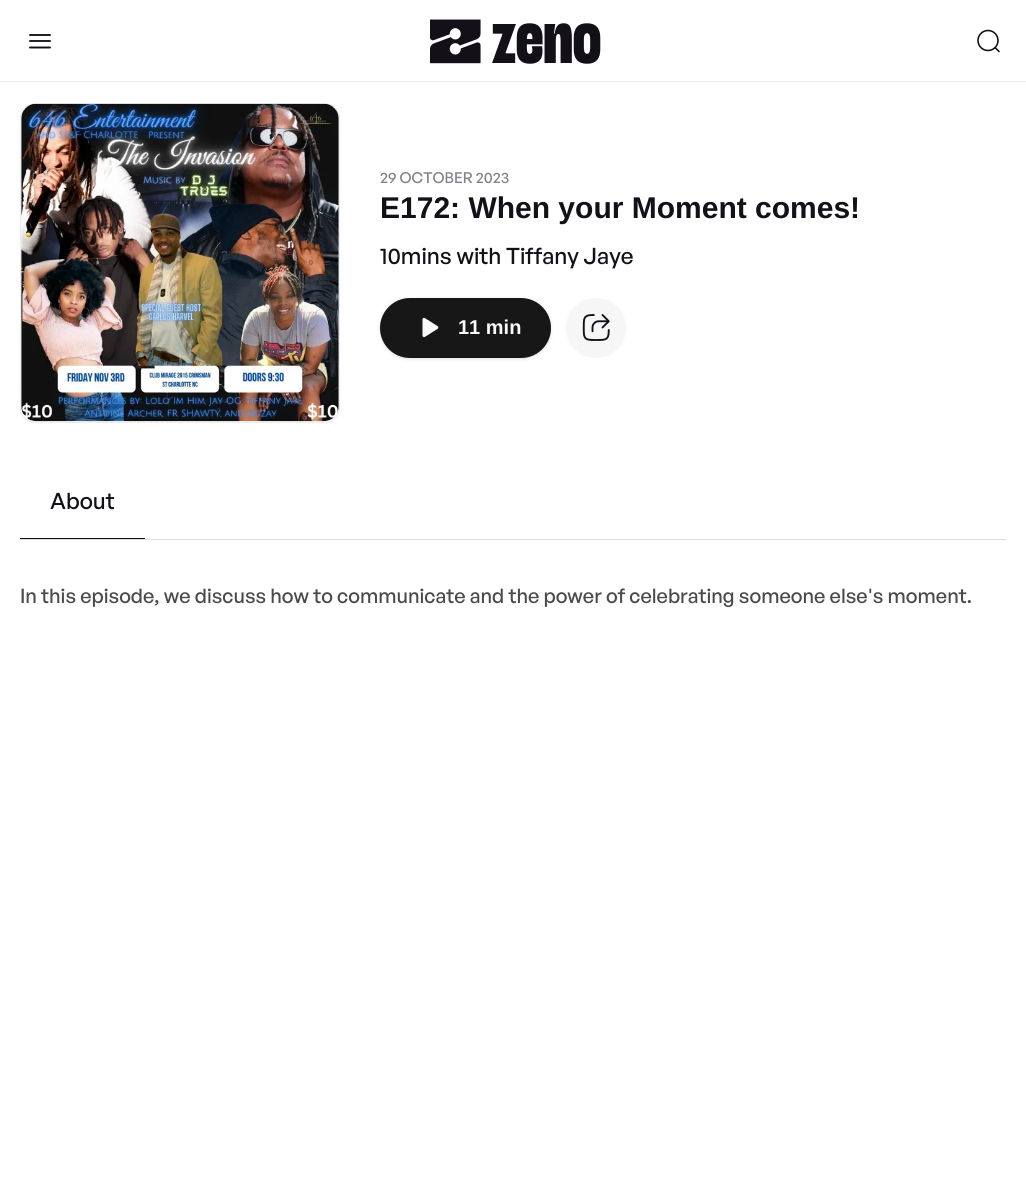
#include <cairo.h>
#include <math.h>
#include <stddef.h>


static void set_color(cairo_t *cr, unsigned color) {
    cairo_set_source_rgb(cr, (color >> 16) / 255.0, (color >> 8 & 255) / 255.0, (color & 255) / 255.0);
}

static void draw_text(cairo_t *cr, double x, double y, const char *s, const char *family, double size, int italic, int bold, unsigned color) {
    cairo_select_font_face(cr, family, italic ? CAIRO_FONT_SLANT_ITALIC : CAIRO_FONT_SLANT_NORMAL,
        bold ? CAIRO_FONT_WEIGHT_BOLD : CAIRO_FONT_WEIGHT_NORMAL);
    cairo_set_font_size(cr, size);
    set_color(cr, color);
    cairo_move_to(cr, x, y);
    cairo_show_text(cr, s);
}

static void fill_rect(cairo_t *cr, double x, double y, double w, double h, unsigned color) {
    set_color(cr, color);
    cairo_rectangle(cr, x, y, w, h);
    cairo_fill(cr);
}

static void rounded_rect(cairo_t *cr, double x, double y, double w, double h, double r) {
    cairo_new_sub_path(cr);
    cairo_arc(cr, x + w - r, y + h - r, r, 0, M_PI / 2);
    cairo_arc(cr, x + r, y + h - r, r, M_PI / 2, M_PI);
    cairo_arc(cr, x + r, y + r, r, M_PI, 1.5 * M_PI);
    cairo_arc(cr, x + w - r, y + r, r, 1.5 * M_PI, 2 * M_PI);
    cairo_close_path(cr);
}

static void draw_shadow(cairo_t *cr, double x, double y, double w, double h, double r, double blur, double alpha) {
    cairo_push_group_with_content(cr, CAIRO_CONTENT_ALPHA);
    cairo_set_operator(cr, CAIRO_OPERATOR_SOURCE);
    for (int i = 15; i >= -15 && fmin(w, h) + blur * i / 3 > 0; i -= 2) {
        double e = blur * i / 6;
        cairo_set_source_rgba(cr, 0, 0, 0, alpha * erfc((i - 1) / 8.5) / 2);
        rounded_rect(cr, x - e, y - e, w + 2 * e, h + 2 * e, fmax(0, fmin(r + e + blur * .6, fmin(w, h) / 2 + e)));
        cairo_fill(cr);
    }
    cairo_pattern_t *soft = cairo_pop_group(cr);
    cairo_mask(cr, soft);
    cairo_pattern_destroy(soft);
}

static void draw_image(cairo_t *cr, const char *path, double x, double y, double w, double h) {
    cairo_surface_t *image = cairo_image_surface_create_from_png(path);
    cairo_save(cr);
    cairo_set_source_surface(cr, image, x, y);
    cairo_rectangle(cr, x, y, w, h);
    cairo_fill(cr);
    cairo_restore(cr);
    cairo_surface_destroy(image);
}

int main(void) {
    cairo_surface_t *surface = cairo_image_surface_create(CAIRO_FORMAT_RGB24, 1026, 1184);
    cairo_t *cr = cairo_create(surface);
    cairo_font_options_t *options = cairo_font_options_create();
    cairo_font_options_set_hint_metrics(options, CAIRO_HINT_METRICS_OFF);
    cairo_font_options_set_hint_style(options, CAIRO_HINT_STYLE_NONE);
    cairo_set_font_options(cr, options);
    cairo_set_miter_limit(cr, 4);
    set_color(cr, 0xFFFFFF);
    cairo_paint(cr);
    fill_rect(cr, 0, 81, 1026, 1, 0xEDEDED);
    cairo_new_path(cr);
    cairo_move_to(cr, 50, 35);
    cairo_line_to(cr, 30, 35);
    cairo_move_to(cr, 50, 41);
    cairo_line_to(cr, 30, 41);
    cairo_move_to(cr, 50, 47.5);
    cairo_line_to(cr, 30, 47.5);
    set_color(cr, 0x131018);
    cairo_set_line_width(cr, 1.9);
    cairo_set_line_cap(cr, CAIRO_LINE_CAP_ROUND);
    cairo_stroke(cr);
    draw_image(cr, "assets/img1.png", 430, 19, 51, 45);
    draw_text(cr, 492, 63, "zeno", "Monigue", 75, 0, 0, 0x131018);
    cairo_new_path(cr);
    cairo_arc(cr, 988, 40.5, 10, 0, 2 * M_PI);
    cairo_set_line_width(cr, 1.6);
    cairo_set_line_cap(cr, CAIRO_LINE_CAP_BUTT);
    cairo_stroke(cr);
    cairo_new_path(cr);
    cairo_move_to(cr, 995.5, 48);
    cairo_line_to(cr, 999, 51.5);
    cairo_set_line_cap(cr, CAIRO_LINE_CAP_ROUND);
    cairo_stroke(cr);
    set_color(cr, 0xF6F6F6);
    rounded_rect(cr, 20.5, 103.5, 319, 319, 14.5);
    cairo_fill_preserve(cr);
    set_color(cr, 0xEDEDED);
    cairo_set_line_width(cr, 1);
    cairo_set_line_cap(cr, CAIRO_LINE_CAP_BUTT);
    cairo_stroke(cr);
    draw_image(cr, "assets/img2.png", 21, 103, 318, 319);
    draw_text(cr, 380, 183, "29 OCTOBER 2023", "General Sans Medium", 15, 0, 0, 0x83818A);
    draw_text(cr, 380, 218, "E172: When your Moment comes!", "Liberation Sans", 30, 0, 1, 0x131018);
    draw_text(cr, 380, 264, "10mins with Tiffany Jaye", "General Sans Medium", 22.5, 0, 0, 0x131018);
    set_color(cr, 0x000000);
    draw_shadow(cr, 381, 300, 169, 58, 29, 1, 0.1);
    draw_shadow(cr, 380, 299, 171, 60, 30, 2, 0.1);
    set_color(cr, 0x171717);
    rounded_rect(cr, 380, 298, 171, 60, 30);
    cairo_fill(cr);
    draw_image(cr, "assets/img3.png", 422, 317, 17, 21);
    draw_text(cr, 458, 334, "11 min", "Liberation Sans", 20, 0, 1, 0xFAFAFA);
    set_color(cr, 0xF6F6F6);
    cairo_new_path(cr);
    cairo_arc(cr, 596, 328, 30, 0, 2 * M_PI);
    cairo_fill(cr);
    draw_image(cr, "assets/img4.png", 582, 314, 28, 27);
    fill_rect(cr, 20, 539, 986, 1, 0xDDDDDD);
    fill_rect(cr, 20, 538, 125, 1, 0x131018);
    draw_text(cr, 50, 509, "About", "General Sans Medium", 22.5, 0, 0, 0x131018);
    draw_text(cr, 20, 603, "In this episode, we discuss how to communicate and the power of celebrating someone else's moment.", "General Sans Medium", 20, 0, 0, 0x4A4A4A);
    cairo_surface_write_to_png(surface, "output.png");
    cairo_font_options_destroy(options);
    cairo_destroy(cr);
    cairo_surface_destroy(surface);
    return 0;
}
